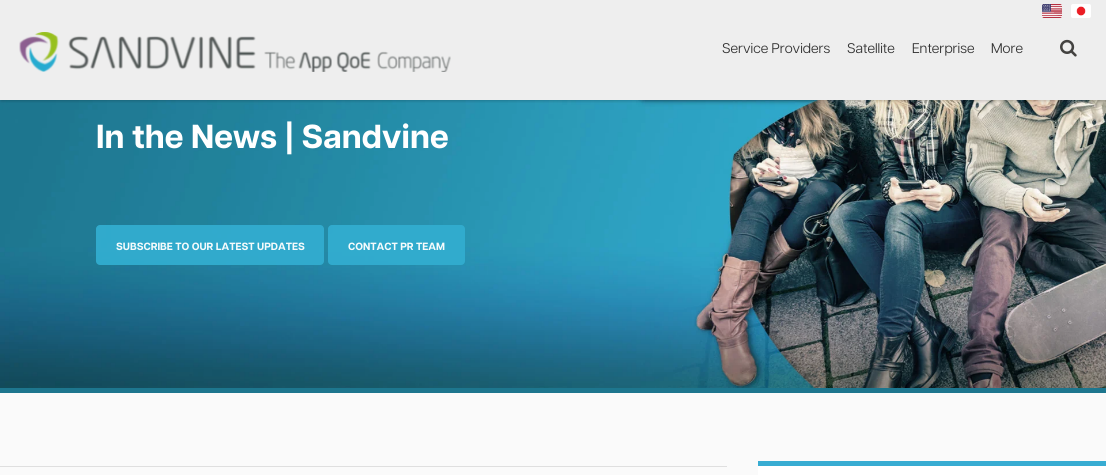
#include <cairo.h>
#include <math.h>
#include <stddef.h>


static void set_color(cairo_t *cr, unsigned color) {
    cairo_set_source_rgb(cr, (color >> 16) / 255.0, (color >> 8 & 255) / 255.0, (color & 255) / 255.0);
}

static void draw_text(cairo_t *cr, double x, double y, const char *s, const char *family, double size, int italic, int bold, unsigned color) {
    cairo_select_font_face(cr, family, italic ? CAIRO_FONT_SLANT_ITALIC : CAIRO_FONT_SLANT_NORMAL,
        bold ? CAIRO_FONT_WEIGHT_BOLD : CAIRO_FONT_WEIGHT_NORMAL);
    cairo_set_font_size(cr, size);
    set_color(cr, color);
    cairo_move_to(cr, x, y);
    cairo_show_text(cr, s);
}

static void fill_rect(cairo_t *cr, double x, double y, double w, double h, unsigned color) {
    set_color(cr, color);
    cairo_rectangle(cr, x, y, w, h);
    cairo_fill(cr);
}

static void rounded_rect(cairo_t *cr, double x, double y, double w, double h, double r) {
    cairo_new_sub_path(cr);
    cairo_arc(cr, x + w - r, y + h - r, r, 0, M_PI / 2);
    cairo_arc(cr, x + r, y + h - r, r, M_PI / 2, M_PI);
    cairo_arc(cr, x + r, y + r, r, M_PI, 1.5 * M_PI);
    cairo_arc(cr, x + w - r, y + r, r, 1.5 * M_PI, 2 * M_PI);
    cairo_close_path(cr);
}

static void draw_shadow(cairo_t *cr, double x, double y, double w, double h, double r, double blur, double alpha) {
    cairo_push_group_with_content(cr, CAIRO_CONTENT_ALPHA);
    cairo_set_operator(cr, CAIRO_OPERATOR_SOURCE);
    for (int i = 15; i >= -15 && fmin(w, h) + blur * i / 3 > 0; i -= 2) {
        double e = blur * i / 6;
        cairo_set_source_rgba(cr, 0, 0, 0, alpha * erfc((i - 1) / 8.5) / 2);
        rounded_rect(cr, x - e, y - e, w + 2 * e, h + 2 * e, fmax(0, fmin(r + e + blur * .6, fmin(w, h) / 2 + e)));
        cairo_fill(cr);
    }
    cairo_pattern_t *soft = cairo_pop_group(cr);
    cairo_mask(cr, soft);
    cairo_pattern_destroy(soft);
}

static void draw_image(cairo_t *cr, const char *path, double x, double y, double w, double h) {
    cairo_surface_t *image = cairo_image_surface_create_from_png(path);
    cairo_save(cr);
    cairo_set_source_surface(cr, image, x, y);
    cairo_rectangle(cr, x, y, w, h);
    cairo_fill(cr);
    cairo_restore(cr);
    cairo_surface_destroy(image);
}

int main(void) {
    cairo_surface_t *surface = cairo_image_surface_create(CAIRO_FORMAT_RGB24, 1106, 475);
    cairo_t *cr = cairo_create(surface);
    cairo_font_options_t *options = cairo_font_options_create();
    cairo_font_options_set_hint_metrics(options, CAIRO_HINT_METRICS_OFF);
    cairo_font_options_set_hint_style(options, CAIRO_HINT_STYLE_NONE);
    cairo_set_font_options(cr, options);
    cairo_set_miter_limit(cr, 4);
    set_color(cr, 0xFAFAFA);
    cairo_paint(cr);
    fill_rect(cr, 0, 0, 1106, 100, 0xEEEEEE);
    draw_image(cr, "assets/img5.png", 0, 100, 1106, 288);
    cairo_save(cr);
    cairo_rectangle(cr, 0, 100, 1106, 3);
    cairo_clip(cr);
    set_color(cr, 0x000000);
    draw_shadow(cr, 1, 1, 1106, 100, 0, 1.5, 0.2);
    cairo_restore(cr);
    draw_image(cr, "assets/img1.png", 19, 32, 432, 40);
    draw_text(cr, 722, 53, "Service Providers", "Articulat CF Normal", 14, 0, 0, 0x333333);
    draw_text(cr, 847, 53, "Satellite", "Articulat CF Normal", 14, 0, 0, 0x333333);
    draw_text(cr, 912, 53, "Enterprise", "Articulat CF Normal", 14, 0, 0, 0x333333);
    draw_text(cr, 991, 53, "More", "Articulat CF Normal", 14, 0, 0, 0x333333);
    draw_image(cr, "assets/img2.png", 1042, 4, 20, 14);
    draw_image(cr, "assets/img3.png", 1071, 4, 20, 14);
    draw_image(cr, "assets/img4.png", 1060, 39, 17, 18);
    draw_text(cr, 96, 148, "In the News | Sandvine", "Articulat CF", 33.25, 0, 1, 0xFFFFFF);
    cairo_set_source_rgba(cr, 0.196, 0.678, 0.812, 0.95);
    rounded_rect(cr, 96, 225, 228, 40, 4);
    cairo_fill(cr);
    draw_text(cr, 116, 250, "SUBSCRIBE TO OUR LATEST UPDATES", "Articulat CF", 10.5, 0, 1, 0xF5FBFC);
    cairo_set_source_rgba(cr, 0.196, 0.678, 0.812, 0.95);
    rounded_rect(cr, 328, 225, 137, 40, 4);
    cairo_fill(cr);
    draw_text(cr, 348, 250, "CONTACT PR TEAM", "Articulat CF", 10.5, 0, 1, 0xF5FBFC);
    fill_rect(cr, 0, 388, 1106, 5, 0x1D768E);
    fill_rect(cr, 0, 466, 727, 1, 0xDFDFDF);
    fill_rect(cr, 758, 466, 348, 9, 0xFFFFFF);
    fill_rect(cr, 758, 461, 348, 5, 0x38ACD2);
    cairo_surface_write_to_png(surface, "output.png");
    cairo_font_options_destroy(options);
    cairo_destroy(cr);
    cairo_surface_destroy(surface);
    return 0;
}
